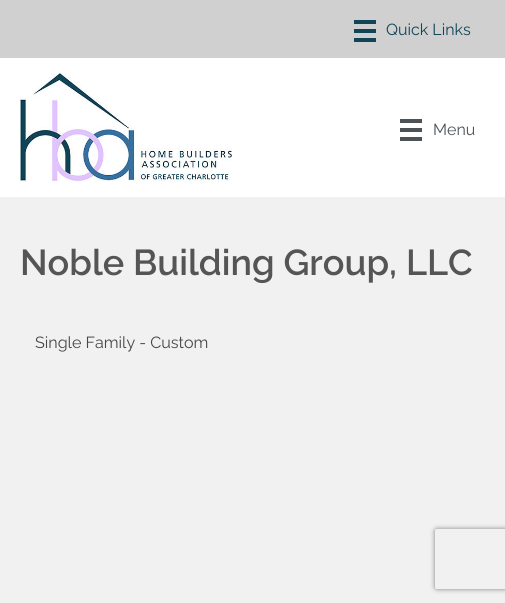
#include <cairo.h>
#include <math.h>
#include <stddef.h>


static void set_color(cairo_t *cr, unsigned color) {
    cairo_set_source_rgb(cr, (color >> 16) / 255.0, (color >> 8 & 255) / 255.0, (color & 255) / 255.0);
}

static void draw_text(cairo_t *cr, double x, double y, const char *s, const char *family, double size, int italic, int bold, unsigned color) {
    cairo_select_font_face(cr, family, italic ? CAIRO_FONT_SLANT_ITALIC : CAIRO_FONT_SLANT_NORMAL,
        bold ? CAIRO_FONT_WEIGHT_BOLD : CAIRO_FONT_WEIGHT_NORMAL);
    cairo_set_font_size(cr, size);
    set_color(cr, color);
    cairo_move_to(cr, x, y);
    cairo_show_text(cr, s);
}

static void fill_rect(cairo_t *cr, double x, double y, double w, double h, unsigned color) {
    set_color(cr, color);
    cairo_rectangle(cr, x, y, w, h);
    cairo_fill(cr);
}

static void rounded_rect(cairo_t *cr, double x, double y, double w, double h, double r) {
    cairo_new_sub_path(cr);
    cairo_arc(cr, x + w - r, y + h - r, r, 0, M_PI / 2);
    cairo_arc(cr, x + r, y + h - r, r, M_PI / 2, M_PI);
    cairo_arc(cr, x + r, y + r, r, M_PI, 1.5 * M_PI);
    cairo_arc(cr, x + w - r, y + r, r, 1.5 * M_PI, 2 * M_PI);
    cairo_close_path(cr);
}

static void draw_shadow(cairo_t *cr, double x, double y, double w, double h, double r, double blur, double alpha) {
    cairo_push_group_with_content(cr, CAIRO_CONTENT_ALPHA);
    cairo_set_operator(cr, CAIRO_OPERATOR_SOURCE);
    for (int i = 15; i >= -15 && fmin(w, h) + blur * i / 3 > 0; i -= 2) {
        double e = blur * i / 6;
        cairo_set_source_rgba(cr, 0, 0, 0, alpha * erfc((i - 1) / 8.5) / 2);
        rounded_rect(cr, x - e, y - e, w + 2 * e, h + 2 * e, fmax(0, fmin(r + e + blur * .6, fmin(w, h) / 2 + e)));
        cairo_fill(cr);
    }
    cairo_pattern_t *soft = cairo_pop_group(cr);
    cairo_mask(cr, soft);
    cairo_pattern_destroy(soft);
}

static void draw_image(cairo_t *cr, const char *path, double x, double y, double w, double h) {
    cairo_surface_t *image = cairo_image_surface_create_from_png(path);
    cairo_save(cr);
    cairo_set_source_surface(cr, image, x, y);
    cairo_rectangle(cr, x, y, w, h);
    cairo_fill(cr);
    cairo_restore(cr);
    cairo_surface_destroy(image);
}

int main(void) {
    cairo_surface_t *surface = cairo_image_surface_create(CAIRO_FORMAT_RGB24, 505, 603);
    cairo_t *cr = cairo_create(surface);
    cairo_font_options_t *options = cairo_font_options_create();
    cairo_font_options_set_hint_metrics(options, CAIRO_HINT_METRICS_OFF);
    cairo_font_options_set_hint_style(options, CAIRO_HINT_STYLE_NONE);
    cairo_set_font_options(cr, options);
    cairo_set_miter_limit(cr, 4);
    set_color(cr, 0xFFFFFF);
    cairo_paint(cr);
    fill_rect(cr, 0, 0, 505, 58, 0xD0D0D0);
    fill_rect(cr, 354, 20, 22, 4, 0x104557);
    fill_rect(cr, 354, 29, 22, 4, 0x104557);
    fill_rect(cr, 354, 38, 22, 4, 0x104557);
    draw_text(cr, 386, 35, "Quick Links", "Raleway", 16, 0, 0, 0x104557);
    draw_image(cr, "assets/img1.png", 20, 73, 212, 109);
    fill_rect(cr, 400, 119, 22, 4, 0x4C5256);
    fill_rect(cr, 400, 128, 22, 4, 0x4C5256);
    fill_rect(cr, 400, 137, 22, 4, 0x4C5256);
    draw_text(cr, 433, 135, "Menu", "Raleway", 16, 0, 0, 0x4C5256);
    fill_rect(cr, 0, 197, 505, 406, 0xF1F1F1);
    draw_text(cr, 20, 275, "Noble Building Group, LLC", "Raleway SemiBold", 36, 0, 0, 0x555555);
    draw_text(cr, 35, 348, "Single Family - Custom", "Raleway", 16.1, 0, 0, 0x474747);
    cairo_save(cr);
    cairo_set_fill_rule(cr, CAIRO_FILL_RULE_EVEN_ODD);
    cairo_new_path(cr);
    cairo_move_to(cr, 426, 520);
    cairo_line_to(cr, 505, 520);
    cairo_line_to(cr, 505, 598);
    cairo_line_to(cr, 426, 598);
    cairo_close_path(cr);
    cairo_move_to(cr, 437, 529);
    cairo_line_to(cr, 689, 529);
    cairo_curve_to(cr, 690, 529, 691, 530, 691, 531);
    cairo_line_to(cr, 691, 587);
    cairo_curve_to(cr, 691, 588, 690, 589, 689, 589);
    cairo_line_to(cr, 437, 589);
    cairo_curve_to(cr, 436, 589, 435, 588, 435, 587);
    cairo_line_to(cr, 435, 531);
    cairo_curve_to(cr, 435, 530, 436, 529, 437, 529);
    cairo_close_path(cr);
    cairo_clip(cr);
    set_color(cr, 0x808080);
    draw_shadow(cr, 435, 529, 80, 60, 2, 2.5, 1);
    cairo_restore(cr);
    cairo_surface_write_to_png(surface, "output.png");
    cairo_font_options_destroy(options);
    cairo_destroy(cr);
    cairo_surface_destroy(surface);
    return 0;
}
